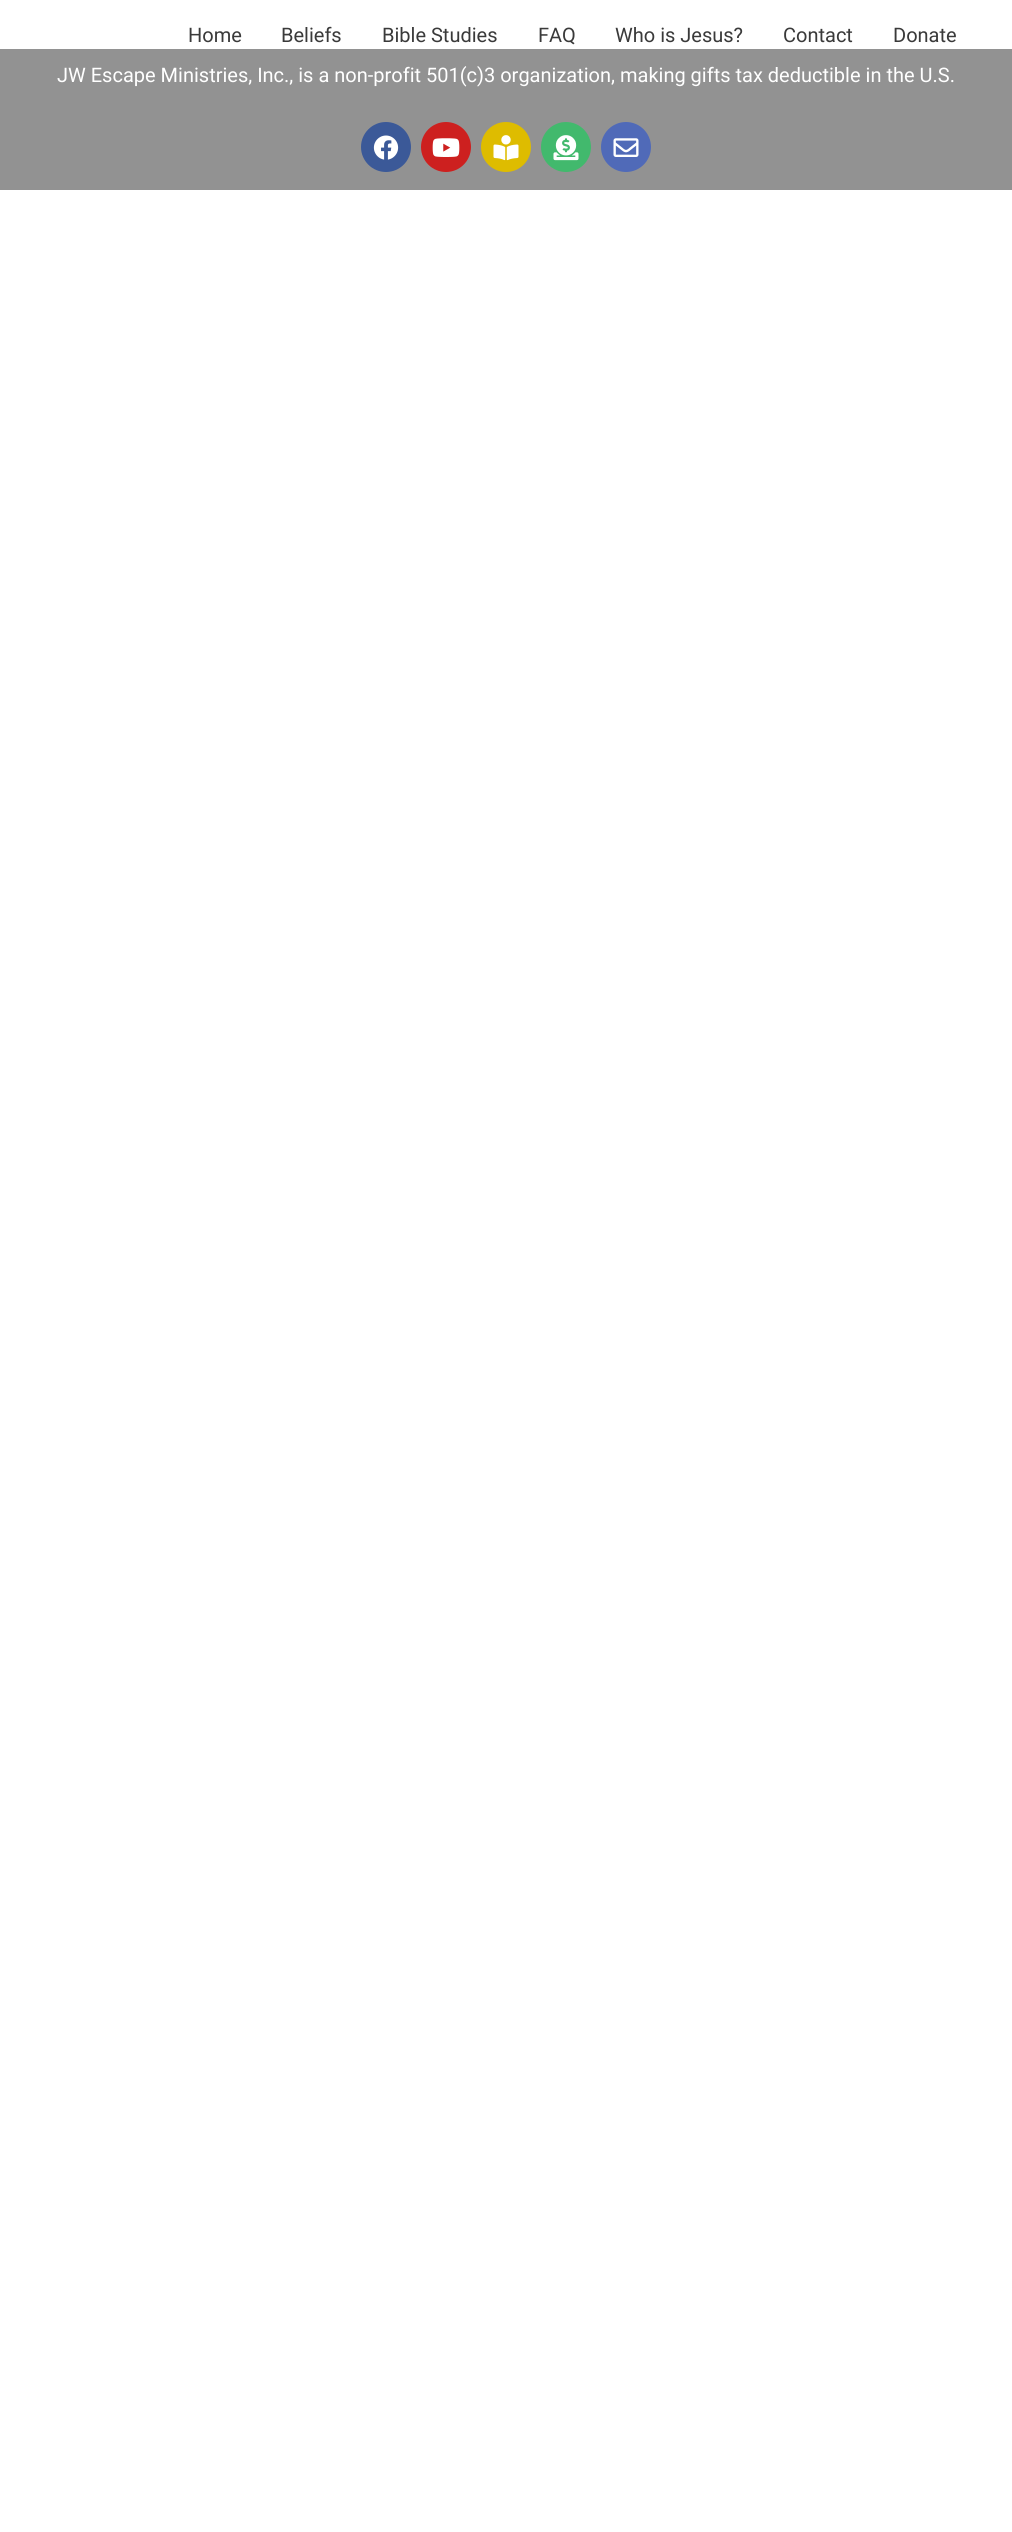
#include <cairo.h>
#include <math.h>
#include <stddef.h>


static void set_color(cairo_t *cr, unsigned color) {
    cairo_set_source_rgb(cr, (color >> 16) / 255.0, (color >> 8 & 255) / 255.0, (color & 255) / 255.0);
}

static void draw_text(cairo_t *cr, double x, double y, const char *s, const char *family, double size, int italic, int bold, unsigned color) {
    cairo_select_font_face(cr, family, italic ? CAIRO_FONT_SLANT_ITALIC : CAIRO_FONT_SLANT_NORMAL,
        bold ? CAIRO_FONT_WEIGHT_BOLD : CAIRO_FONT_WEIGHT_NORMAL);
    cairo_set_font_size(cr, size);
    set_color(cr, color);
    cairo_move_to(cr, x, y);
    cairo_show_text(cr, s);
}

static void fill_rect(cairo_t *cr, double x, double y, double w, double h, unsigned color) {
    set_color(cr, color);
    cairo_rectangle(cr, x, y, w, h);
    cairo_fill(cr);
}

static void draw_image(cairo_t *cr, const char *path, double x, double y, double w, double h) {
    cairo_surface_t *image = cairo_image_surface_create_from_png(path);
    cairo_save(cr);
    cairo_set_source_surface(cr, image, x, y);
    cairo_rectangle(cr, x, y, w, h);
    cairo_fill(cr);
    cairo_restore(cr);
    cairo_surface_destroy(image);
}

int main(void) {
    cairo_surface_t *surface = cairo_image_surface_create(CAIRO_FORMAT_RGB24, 1012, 2532);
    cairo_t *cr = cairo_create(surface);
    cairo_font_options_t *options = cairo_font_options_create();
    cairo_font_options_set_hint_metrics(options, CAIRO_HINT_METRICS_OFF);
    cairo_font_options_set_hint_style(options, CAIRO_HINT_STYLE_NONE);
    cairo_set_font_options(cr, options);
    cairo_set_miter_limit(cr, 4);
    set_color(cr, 0xFFFFFF);
    cairo_paint(cr);
    draw_text(cr, 188, 42, "Home", "Roboto", 20, 0, 0, 0x3A3A3A);
    draw_text(cr, 281, 42, "Beliefs", "Roboto", 20, 0, 0, 0x3A3A3A);
    draw_text(cr, 382, 42, "Bible Studies", "Roboto", 20, 0, 0, 0x3A3A3A);
    draw_text(cr, 538, 42, "FAQ", "Roboto", 20, 0, 0, 0x3A3A3A);
    draw_text(cr, 615, 42, "Who is Jesus?", "Roboto", 20, 0, 0, 0x3A3A3A);
    draw_text(cr, 783, 42, "Contact", "Roboto", 20, 0, 0, 0x3A3A3A);
    draw_text(cr, 893, 42, "Donate", "Roboto", 20, 0, 0, 0x3A3A3A);
    fill_rect(cr, 0, 49, 1012, 141, 0x929292);
    draw_text(cr, 57, 82, "JW Escape Ministries, Inc., is a non-profit 501(c)3 organization, making gifts tax deductible in the U.S.", "Roboto", 20, 0, 0, 0xFFFFFF);
    set_color(cr, 0x3B5998);
    cairo_new_path(cr);
    cairo_arc(cr, 386, 147, 25, 0, 2 * M_PI);
    cairo_fill(cr);
    draw_image(cr, "assets/img1.png", 373, 135, 26, 25);
    set_color(cr, 0xCD201F);
    cairo_arc(cr, 446, 147, 25, 0, 2 * M_PI);
    cairo_fill(cr);
    draw_image(cr, "assets/img2.png", 432, 138, 28, 19);
    set_color(cr, 0xDEBC00);
    cairo_arc(cr, 506, 147, 25, 0, 2 * M_PI);
    cairo_fill(cr);
    draw_image(cr, "assets/img3.png", 493, 135, 26, 26);
    set_color(cr, 0x42B96D);
    cairo_arc(cr, 566, 147, 25, 0, 2 * M_PI);
    cairo_fill(cr);
    draw_image(cr, "assets/img4.png", 553, 135, 26, 26);
    set_color(cr, 0x506AB8);
    cairo_arc(cr, 626, 147, 25, 0, 2 * M_PI);
    cairo_fill(cr);
    draw_image(cr, "assets/img5.png", 613, 138, 26, 19);
    cairo_surface_write_to_png(surface, "output.png");
    cairo_font_options_destroy(options);
    cairo_destroy(cr);
    cairo_surface_destroy(surface);
    return 0;
}
